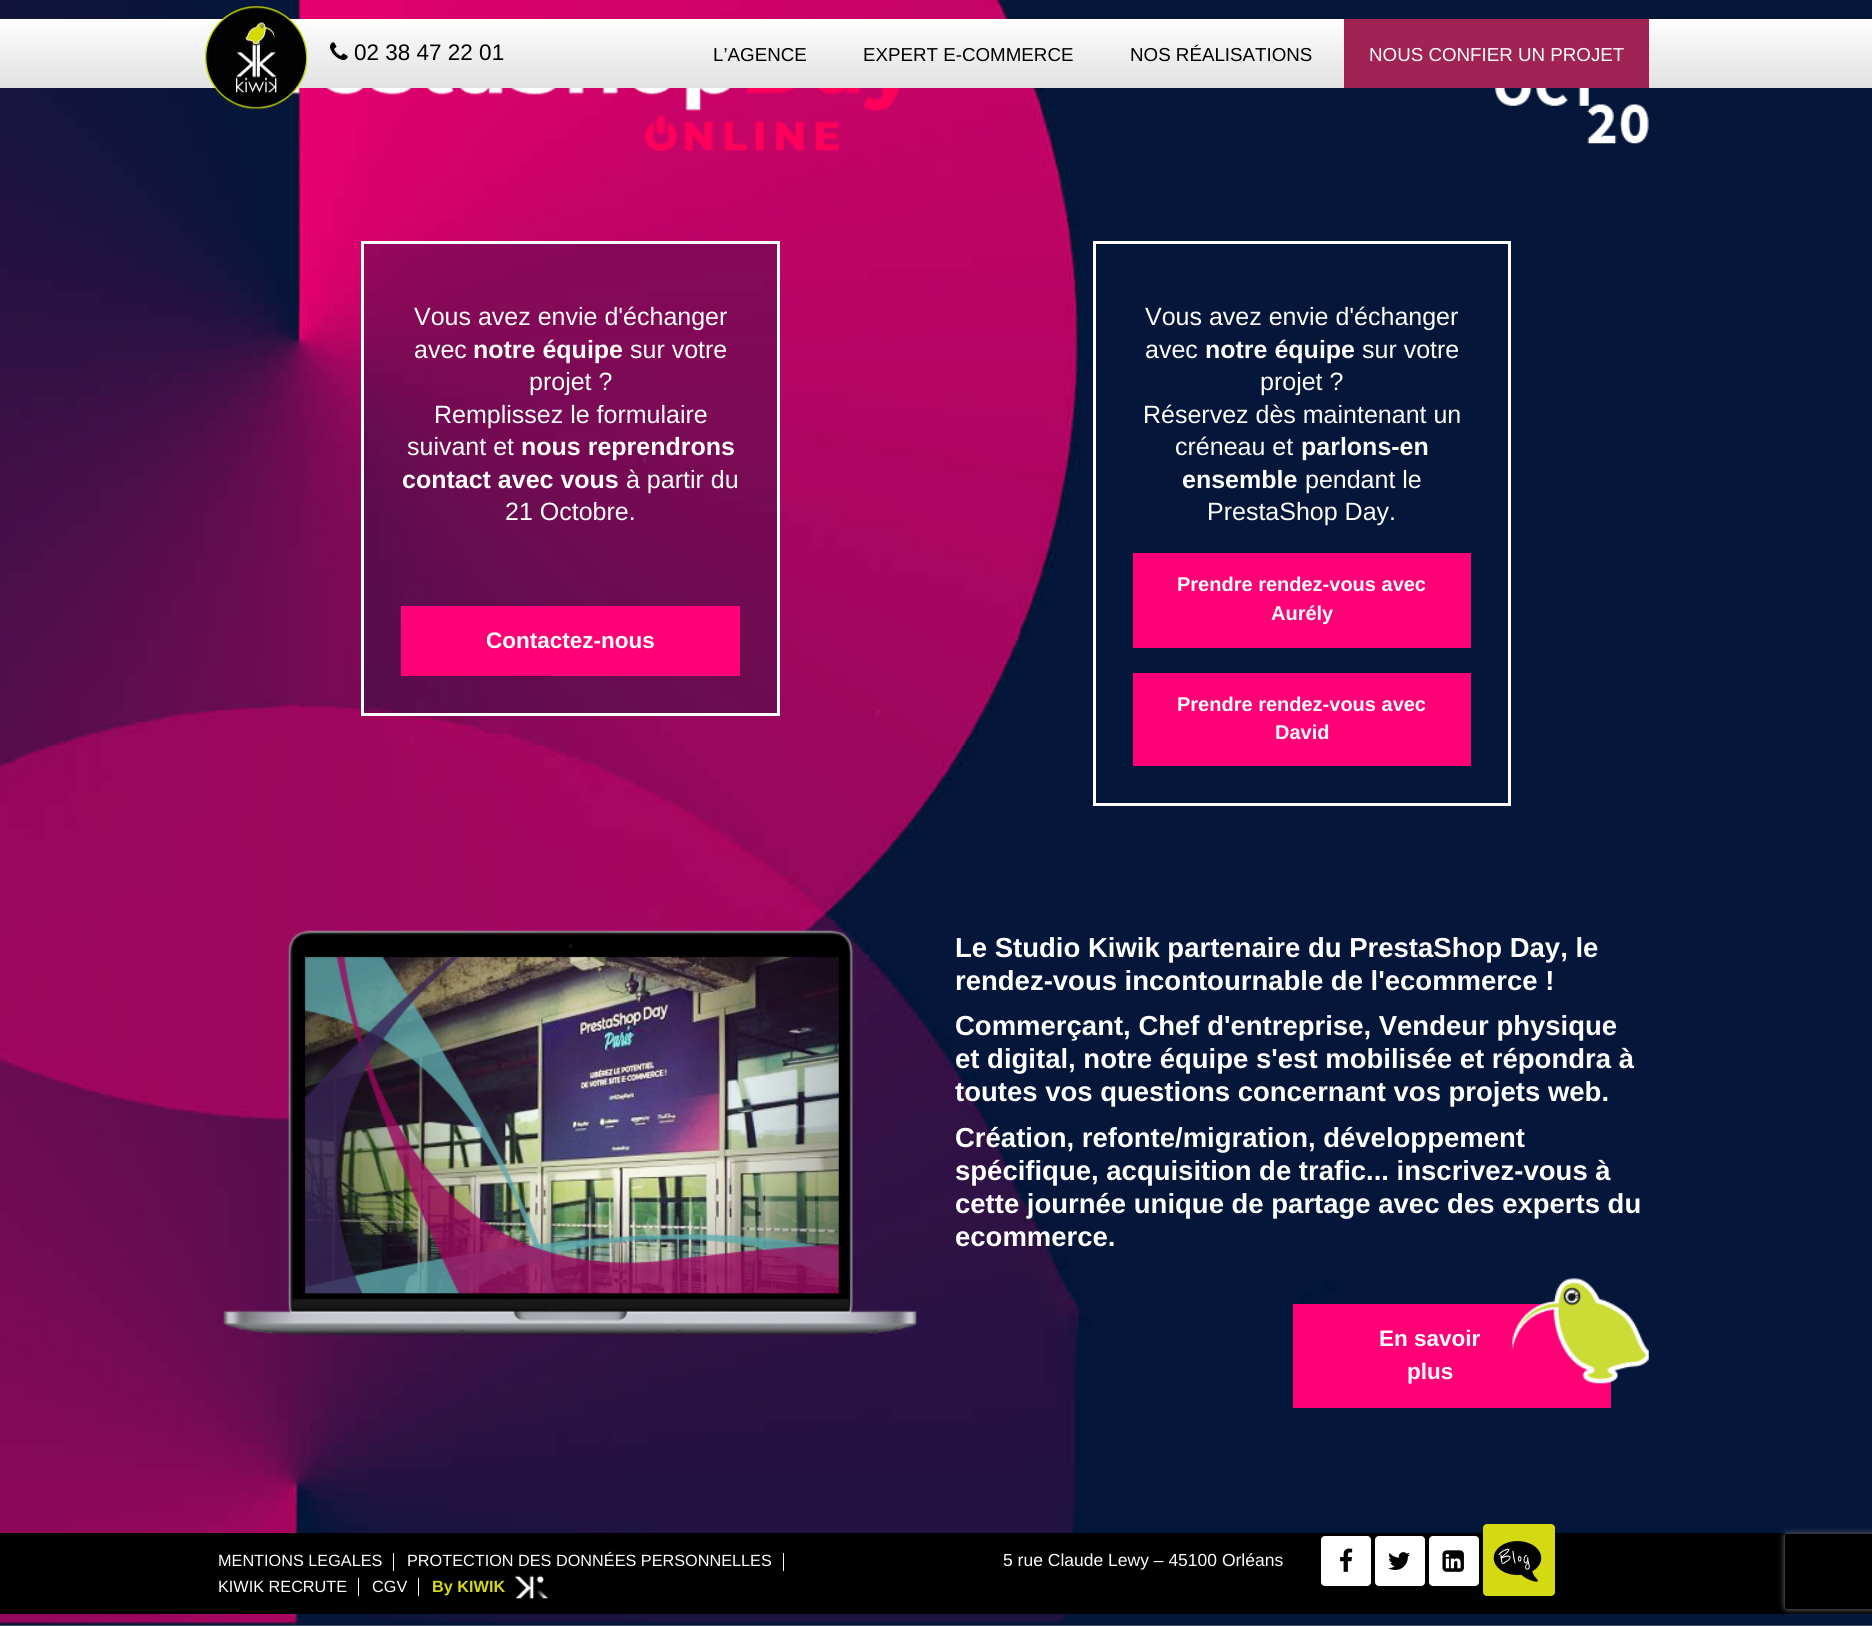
#include <cairo.h>
#include <math.h>
#include <stddef.h>


static void set_color(cairo_t *cr, unsigned color) {
    cairo_set_source_rgb(cr, (color >> 16) / 255.0, (color >> 8 & 255) / 255.0, (color & 255) / 255.0);
}

static void draw_text(cairo_t *cr, double x, double y, const char *s, const char *family, double size, int italic, int bold, unsigned color) {
    cairo_select_font_face(cr, family, italic ? CAIRO_FONT_SLANT_ITALIC : CAIRO_FONT_SLANT_NORMAL,
        bold ? CAIRO_FONT_WEIGHT_BOLD : CAIRO_FONT_WEIGHT_NORMAL);
    cairo_set_font_size(cr, size);
    set_color(cr, color);
    cairo_move_to(cr, x, y);
    cairo_show_text(cr, s);
}

static void fill_rect(cairo_t *cr, double x, double y, double w, double h, unsigned color) {
    set_color(cr, color);
    cairo_rectangle(cr, x, y, w, h);
    cairo_fill(cr);
}

static void rounded_rect(cairo_t *cr, double x, double y, double w, double h, double r) {
    cairo_new_sub_path(cr);
    cairo_arc(cr, x + w - r, y + h - r, r, 0, M_PI / 2);
    cairo_arc(cr, x + r, y + h - r, r, M_PI / 2, M_PI);
    cairo_arc(cr, x + r, y + r, r, M_PI, 1.5 * M_PI);
    cairo_arc(cr, x + w - r, y + r, r, 1.5 * M_PI, 2 * M_PI);
    cairo_close_path(cr);
}

static void draw_shadow(cairo_t *cr, double x, double y, double w, double h, double r, double blur, double alpha) {
    cairo_push_group_with_content(cr, CAIRO_CONTENT_ALPHA);
    cairo_set_operator(cr, CAIRO_OPERATOR_SOURCE);
    for (int i = 15; i >= -15 && fmin(w, h) + blur * i / 3 > 0; i -= 2) {
        double e = blur * i / 6;
        cairo_set_source_rgba(cr, 0, 0, 0, alpha * erfc((i - 1) / 8.5) / 2);
        rounded_rect(cr, x - e, y - e, w + 2 * e, h + 2 * e, fmax(0, fmin(r + e + blur * .6, fmin(w, h) / 2 + e)));
        cairo_fill(cr);
    }
    cairo_pattern_t *soft = cairo_pop_group(cr);
    cairo_mask(cr, soft);
    cairo_pattern_destroy(soft);
}

static void draw_image(cairo_t *cr, const char *path, double x, double y, double w, double h) {
    cairo_surface_t *image = cairo_image_surface_create_from_png(path);
    cairo_save(cr);
    cairo_set_source_surface(cr, image, x, y);
    cairo_rectangle(cr, x, y, w, h);
    cairo_fill(cr);
    cairo_restore(cr);
    cairo_surface_destroy(image);
}

int main(void) {
    cairo_surface_t *surface = cairo_image_surface_create(CAIRO_FORMAT_RGB24, 1872, 1626);
    cairo_t *cr = cairo_create(surface);
    cairo_font_options_t *options = cairo_font_options_create();
    cairo_font_options_set_hint_metrics(options, CAIRO_HINT_METRICS_OFF);
    cairo_font_options_set_hint_style(options, CAIRO_HINT_STYLE_NONE);
    cairo_set_font_options(cr, options);
    cairo_set_miter_limit(cr, 4);
    cairo_pattern_t *gradient;
    set_color(cr, 0xFFFFFF);
    cairo_paint(cr);
    draw_image(cr, "assets/img1.png", 0, 0, 1872, 1626);
    gradient = cairo_pattern_create_linear(936, 19, 936, 88);
    cairo_pattern_add_color_stop_rgba(gradient, 0, 1, 1, 1, 1);
    cairo_pattern_add_color_stop_rgba(gradient, 0.5, 0.937, 0.937, 0.937, 1);
    cairo_pattern_add_color_stop_rgba(gradient, 1, 0.886, 0.886, 0.886, 1);
    cairo_set_source(cr, gradient);
    cairo_pattern_destroy(gradient);
    cairo_rectangle(cr, 0, 19, 1872, 69);
    cairo_fill(cr);
    draw_image(cr, "assets/img4.png", 289, 88, 612, 63);
    draw_image(cr, "assets/img2.png", 205, 6, 103, 104);
    draw_image(cr, "assets/img3.png", 330, 42, 18, 18);
    draw_text(cr, 354, 60, "02 38 47 22 01", "Liberation Sans", 22.5, 0, 0, 0x000000);
    draw_text(cr, 713, 61, "L’AGENCE", "Liberation Sans", 18.75, 0, 0, 0x000000);
    draw_text(cr, 863, 61, "EXPERT E-COMMERCE", "Liberation Sans", 18.75, 0, 0, 0x000000);
    draw_text(cr, 1130, 61, "NOS RÉALISATIONS", "Liberation Sans", 18.75, 0, 0, 0x000000);
    fill_rect(cr, 1344, 19, 305, 69, 0xA12354);
    draw_text(cr, 1369, 61, "NOUS CONFIER UN PROJET", "Liberation Sans", 18.75, 0, 0, 0xFFFFFF);
    draw_image(cr, "assets/img5.png", 1494, 88, 155, 56);
    cairo_set_source_rgba(cr, 0.004, 0.086, 0.22, 0.3);
    cairo_rectangle(cr, 362.5, 242.5, 416, 472);
    cairo_fill_preserve(cr);
    set_color(cr, 0xFFFFFF);
    cairo_set_line_width(cr, 3);
    cairo_stroke(cr);
    draw_text(cr, 414, 325, "Vous avez envie d'échanger", "Liberation Sans", 25, 0, 0, 0xFFFFFF);
    draw_text(cr, 414, 358, "avec", "Liberation Sans", 25, 0, 0, 0xFFFFFF);
    draw_text(cr, 473, 358, "notre équipe", "Liberation Sans", 25, 0, 1, 0xFFFFFF);
    draw_text(cr, 630, 358, "sur votre", "Liberation Sans", 25, 0, 0, 0xFFFFFF);
    draw_text(cr, 529, 390, "projet ?", "Liberation Sans", 25, 0, 0, 0xFFFFFF);
    draw_text(cr, 434, 423, "Remplissez le formulaire", "Liberation Sans", 25, 0, 0, 0xFFFFFF);
    draw_text(cr, 407, 455, "suivant et", "Liberation Sans", 25, 0, 0, 0xFFFFFF);
    draw_text(cr, 521, 455, "nous reprendrons", "Liberation Sans", 25, 0, 1, 0xFFFFFF);
    draw_text(cr, 402, 488, "contact avec vous", "Liberation Sans", 25, 0, 1, 0xFFFFFF);
    draw_text(cr, 626, 488, "à partir du", "Liberation Sans", 25, 0, 0, 0xFFFFFF);
    draw_text(cr, 505, 520, "21 Octobre.", "Liberation Sans", 25, 0, 0, 0xFFFFFF);
    fill_rect(cr, 401, 606, 339, 70, 0xFF0076);
    draw_text(cr, 486, 648, "Contactez-nous", "Liberation Sans", 22.5, 0, 1, 0xFFFFFF);
    cairo_rectangle(cr, 1094.5, 242.5, 415, 562);
    cairo_stroke(cr);
    draw_text(cr, 1145, 325, "Vous avez envie d'échanger", "Liberation Sans", 25, 0, 0, 0xFFFFFF);
    draw_text(cr, 1145, 358, "avec", "Liberation Sans", 25, 0, 0, 0xFFFFFF);
    draw_text(cr, 1205, 358, "notre équipe", "Liberation Sans", 25, 0, 1, 0xFFFFFF);
    draw_text(cr, 1362, 358, "sur votre", "Liberation Sans", 25, 0, 0, 0xFFFFFF);
    draw_text(cr, 1260, 390, "projet ?", "Liberation Sans", 25, 0, 0, 0xFFFFFF);
    draw_text(cr, 1143, 423, "Réservez dès maintenant un", "Liberation Sans", 25, 0, 0, 0xFFFFFF);
    draw_text(cr, 1175, 455, "créneau et", "Liberation Sans", 25, 0, 0, 0xFFFFFF);
    draw_text(cr, 1301, 455, "parlons-en", "Liberation Sans", 25, 0, 1, 0xFFFFFF);
    draw_text(cr, 1182, 488, "ensemble", "Liberation Sans", 25, 0, 1, 0xFFFFFF);
    draw_text(cr, 1305, 488, "pendant le", "Liberation Sans", 25, 0, 0, 0xFFFFFF);
    draw_text(cr, 1207, 520, "PrestaShop Day.", "Liberation Sans", 25, 0, 0, 0xFFFFFF);
    fill_rect(cr, 1133, 553, 338, 95, 0xFF0076);
    draw_text(cr, 1177, 591, "Prendre rendez-vous avec", "Liberation Sans", 20, 0, 1, 0xFFFFFF);
    draw_text(cr, 1271, 620, "Aurély", "Liberation Sans", 20, 0, 1, 0xFFFFFF);
    fill_rect(cr, 1133, 673, 338, 93, 0xFF0076);
    draw_text(cr, 1177, 711, "Prendre rendez-vous avec", "Liberation Sans", 20, 0, 1, 0xFFFFFF);
    draw_text(cr, 1275, 739, "David", "Liberation Sans", 20, 0, 1, 0xFFFFFF);
    draw_image(cr, "assets/img6.png", 223, 930, 694, 406);
    draw_text(cr, 955, 957, "Le Studio Kiwik partenaire du PrestaShop Day, le", "Liberation Sans", 27.5, 0, 1, 0xFFFFFF);
    draw_text(cr, 955, 990, "rendez-vous incontournable de l'ecommerce !", "Liberation Sans", 27.5, 0, 1, 0xFFFFFF);
    draw_text(cr, 955, 1035, "Commerçant, Chef d'entreprise, Vendeur physique", "Liberation Sans", 27.5, 0, 1, 0xFFFFFF);
    draw_text(cr, 955, 1068, "et digital, notre équipe s'est mobilisée et répondra à", "Liberation Sans", 27.5, 0, 1, 0xFFFFFF);
    draw_text(cr, 955, 1101, "toutes vos questions concernant vos projets web.", "Liberation Sans", 27.5, 0, 1, 0xFFFFFF);
    draw_text(cr, 955, 1147, "Création, refonte/migration, développement", "Liberation Sans", 27.5, 0, 1, 0xFFFFFF);
    draw_text(cr, 955, 1180, "spécifique, acquisition de trafic... inscrivez-vous à", "Liberation Sans", 27.5, 0, 1, 0xFFFFFF);
    draw_text(cr, 955, 1213, "cette journée unique de partage avec des experts du", "Liberation Sans", 27.5, 0, 1, 0xFFFFFF);
    draw_text(cr, 955, 1246, "ecommerce.", "Liberation Sans", 27.5, 0, 1, 0xFFFFFF);
    fill_rect(cr, 1293, 1304, 318, 104, 0xFF0076);
    draw_text(cr, 1379, 1346, "En savoir", "Liberation Sans", 22.5, 0, 1, 0xFFFFFF);
    draw_image(cr, "assets/img7.png", 1511, 1278, 138, 106);
    draw_text(cr, 1407, 1379, "plus", "Liberation Sans", 22.5, 0, 1, 0xFFFFFF);
    fill_rect(cr, 0, 1533, 1872, 81, 0x000000);
    draw_text(cr, 218, 1566, "MENTIONS LEGALES", "Liberation Sans", 16.25, 0, 0, 0xFFFFFF);
    fill_rect(cr, 393, 1553, 1, 18, 0xFFFFFF);
    draw_text(cr, 407, 1566, "PROTECTION DES DONNÉES PERSONNELLES", "Liberation Sans", 16.25, 0, 0, 0xFFFFFF);
    fill_rect(cr, 783, 1553, 1, 18, 0xFFFFFF);
    draw_text(cr, 218, 1592, "KIWIK RECRUTE", "Liberation Sans", 16.25, 0, 0, 0xFFFFFF);
    fill_rect(cr, 358, 1578, 1, 18, 0xFFFFFF);
    draw_text(cr, 372, 1592, "CGV", "Liberation Sans", 16.25, 0, 0, 0xFFFFFF);
    fill_rect(cr, 418, 1578, 1, 18, 0xFFFFFF);
    draw_image(cr, "assets/img8.png", 515, 1575, 33, 24);
    draw_text(cr, 432, 1592, "By KIWIK", "Liberation Sans", 16.25, 0, 1, 0xD4D912);
    draw_text(cr, 1003, 1566, "5 rue Claude Lewy – 45100 Orléans", "Liberation Sans", 17.5, 0, 0, 0xFFFFFF);
    rounded_rect(cr, 1321, 1536, 50, 50, 4);
    cairo_fill(cr);
    draw_image(cr, "assets/img9.png", 1340, 1548, 13, 24);
    rounded_rect(cr, 1375, 1536, 50, 50, 4);
    cairo_fill(cr);
    draw_image(cr, "assets/img10.png", 1388, 1552, 22, 18);
    rounded_rect(cr, 1429, 1536, 50, 50, 4);
    cairo_fill(cr);
    draw_image(cr, "assets/img11.png", 1442, 1550, 22, 22);
    set_color(cr, 0xD4D912);
    rounded_rect(cr, 1483, 1524, 72, 72, 4);
    cairo_fill(cr);
    draw_image(cr, "assets/img12.png", 1493, 1541, 49, 41);
    draw_text(cr, 1499, 1564, "Blog", "Reenie Beanie Medium", 22.5, 0, 0, 0xFFFFFF);
    cairo_save(cr);
    cairo_set_fill_rule(cr, CAIRO_FILL_RULE_EVEN_ODD);
    cairo_new_path(cr);
    cairo_move_to(cr, 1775, 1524);
    cairo_line_to(cr, 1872, 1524);
    cairo_line_to(cr, 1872, 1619);
    cairo_line_to(cr, 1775, 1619);
    cairo_close_path(cr);
    cairo_move_to(cr, 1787.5, 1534);
    cairo_line_to(cr, 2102.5, 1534);
    cairo_curve_to(cr, 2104, 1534, 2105, 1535, 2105, 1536.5);
    cairo_line_to(cr, 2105, 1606.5);
    cairo_curve_to(cr, 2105, 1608, 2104, 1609, 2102.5, 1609);
    cairo_line_to(cr, 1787.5, 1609);
    cairo_curve_to(cr, 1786, 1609, 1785, 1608, 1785, 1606.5);
    cairo_line_to(cr, 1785, 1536.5);
    cairo_curve_to(cr, 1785, 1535, 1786, 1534, 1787.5, 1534);
    cairo_close_path(cr);
    cairo_clip(cr);
    set_color(cr, 0x808080);
    draw_shadow(cr, 1785, 1534, 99, 75, 2.5, 3, 1);
    cairo_restore(cr);
    cairo_surface_write_to_png(surface, "output.png");
    cairo_font_options_destroy(options);
    cairo_destroy(cr);
    cairo_surface_destroy(surface);
    return 0;
}
